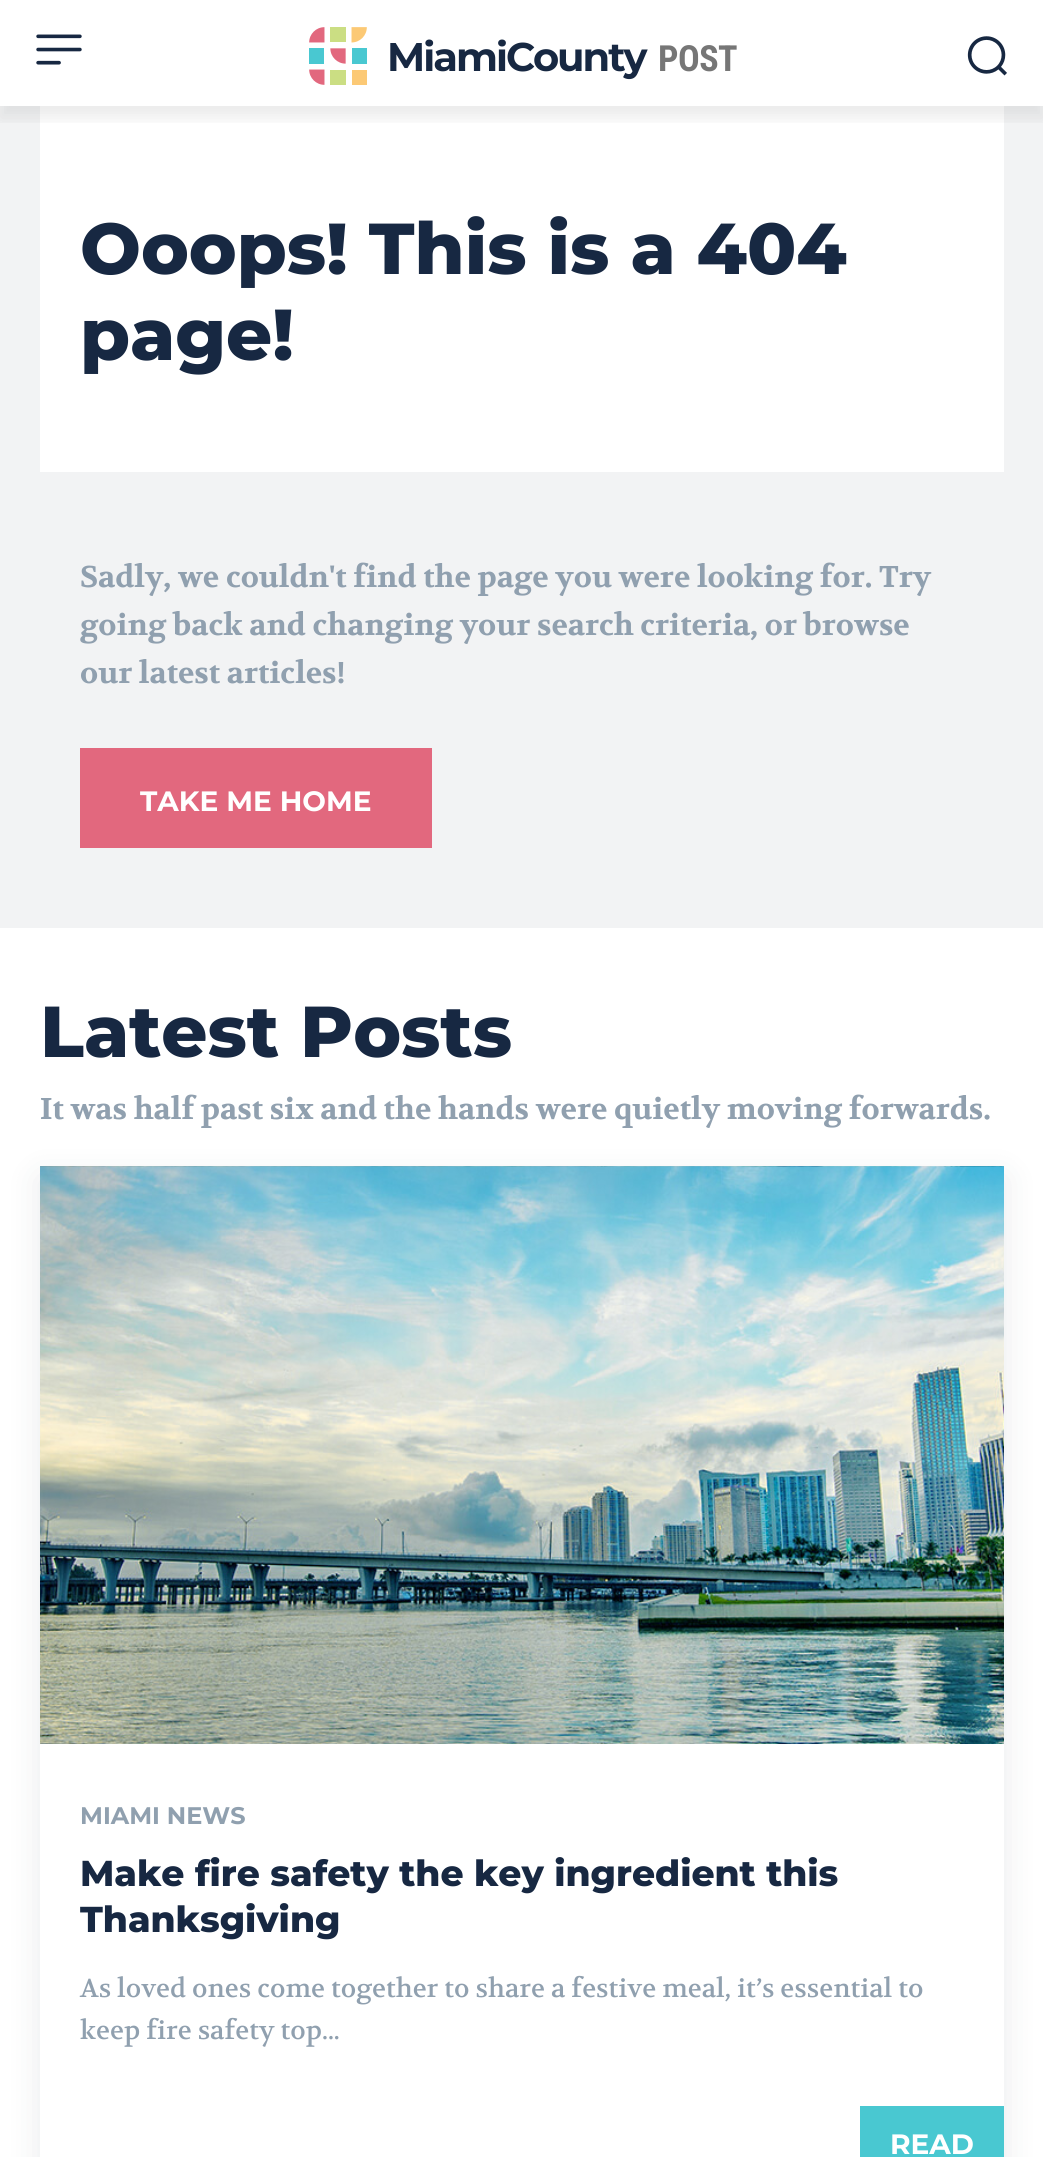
#include <cairo.h>
#include <math.h>
#include <stddef.h>


static void set_color(cairo_t *cr, unsigned color) {
    cairo_set_source_rgb(cr, (color >> 16) / 255.0, (color >> 8 & 255) / 255.0, (color & 255) / 255.0);
}

static void draw_text(cairo_t *cr, double x, double y, const char *s, const char *family, double size, int italic, int bold, unsigned color) {
    cairo_select_font_face(cr, family, italic ? CAIRO_FONT_SLANT_ITALIC : CAIRO_FONT_SLANT_NORMAL,
        bold ? CAIRO_FONT_WEIGHT_BOLD : CAIRO_FONT_WEIGHT_NORMAL);
    cairo_set_font_size(cr, size);
    set_color(cr, color);
    cairo_move_to(cr, x, y);
    cairo_show_text(cr, s);
}

static void draw_spaced(cairo_t *cr, double x, double y, const char *s, double letter, double word) {
    cairo_move_to(cr, x, y);
    while (*s) {
        char ch[5] = {0};
        int n = 0;
        do ch[n++] = *s++; while ((*s & 0xC0) == 0x80);
        cairo_show_text(cr, ch);
        cairo_rel_move_to(cr, letter + word * (*ch == ' '), 0);
    }
}

static void fill_rect(cairo_t *cr, double x, double y, double w, double h, unsigned color) {
    set_color(cr, color);
    cairo_rectangle(cr, x, y, w, h);
    cairo_fill(cr);
}

static void rounded_rect(cairo_t *cr, double x, double y, double w, double h, double r) {
    cairo_new_sub_path(cr);
    cairo_arc(cr, x + w - r, y + h - r, r, 0, M_PI / 2);
    cairo_arc(cr, x + r, y + h - r, r, M_PI / 2, M_PI);
    cairo_arc(cr, x + r, y + r, r, M_PI, 1.5 * M_PI);
    cairo_arc(cr, x + w - r, y + r, r, 1.5 * M_PI, 2 * M_PI);
    cairo_close_path(cr);
}

static void draw_shadow(cairo_t *cr, double x, double y, double w, double h, double r, double blur, double alpha) {
    cairo_push_group_with_content(cr, CAIRO_CONTENT_ALPHA);
    cairo_set_operator(cr, CAIRO_OPERATOR_SOURCE);
    for (int i = 15; i >= -15 && fmin(w, h) + blur * i / 3 > 0; i -= 2) {
        double e = blur * i / 6;
        cairo_set_source_rgba(cr, 0, 0, 0, alpha * erfc((i - 1) / 8.5) / 2);
        rounded_rect(cr, x - e, y - e, w + 2 * e, h + 2 * e, fmax(0, fmin(r + e + blur * .6, fmin(w, h) / 2 + e)));
        cairo_fill(cr);
    }
    cairo_pattern_t *soft = cairo_pop_group(cr);
    cairo_mask(cr, soft);
    cairo_pattern_destroy(soft);
}

static void draw_image(cairo_t *cr, const char *path, double x, double y, double w, double h) {
    cairo_surface_t *image = cairo_image_surface_create_from_png(path);
    cairo_save(cr);
    cairo_set_source_surface(cr, image, x, y);
    cairo_rectangle(cr, x, y, w, h);
    cairo_fill(cr);
    cairo_restore(cr);
    cairo_surface_destroy(image);
}

int main(void) {
    cairo_surface_t *surface = cairo_image_surface_create(CAIRO_FORMAT_RGB24, 1043, 2157);
    cairo_t *cr = cairo_create(surface);
    cairo_font_options_t *options = cairo_font_options_create();
    cairo_font_options_set_hint_metrics(options, CAIRO_HINT_METRICS_OFF);
    cairo_font_options_set_hint_style(options, CAIRO_HINT_STYLE_NONE);
    cairo_set_font_options(cr, options);
    cairo_set_miter_limit(cr, 4);
    set_color(cr, 0xFFFFFF);
    cairo_paint(cr);
    draw_image(cr, "assets/img1.png", 36, 34, 46, 31);
    draw_image(cr, "assets/img2.png", 309, 27, 58, 58);
    draw_image(cr, "assets/img3.png", 967, 36, 40, 40);
    fill_rect(cr, 0, 106, 1043, 822, 0xF2F3F4);
    fill_rect(cr, 40, 106, 964, 366, 0xFFFFFF);
    cairo_save(cr);
    cairo_rectangle(cr, 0, 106, 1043, 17);
    cairo_clip(cr);
    set_color(cr, 0x000000);
    draw_shadow(cr, 0, 12, 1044, 106, 0, 8, 0.08);
    cairo_restore(cr);
    cairo_select_font_face(cr, "Montserrat", CAIRO_FONT_SLANT_NORMAL, CAIRO_FONT_WEIGHT_BOLD);
    cairo_set_font_size(cr, 40);
    set_color(cr, 0x172842);
    draw_spaced(cr, 387, 71, "MiamiCounty", -2, 0);
    cairo_select_font_face(cr, "Roboto Condensed", CAIRO_FONT_SLANT_NORMAL, CAIRO_FONT_WEIGHT_BOLD);
    cairo_set_font_size(cr, 36);
    set_color(cr, 0x767676);
    draw_spaced(cr, 658, 71, "POST", -0.5, 0);
    draw_text(cr, 80, 274, "Ooops! This is a 404", "Montserrat ExtraBold", 72, 0, 0, 0x172842);
    draw_text(cr, 80, 360, "page!", "Montserrat ExtraBold", 72, 0, 0, 0x172842);
    draw_text(cr, 80, 587, "Sadly, we couldn't find the page you were looking for. Try", "Volkhov", 30, 0, 1, 0x90A0AF);
    draw_text(cr, 80, 635, "going back and changing your search criteria, or browse", "Volkhov", 30, 0, 1, 0x90A0AF);
    draw_text(cr, 80, 683, "our latest articles!", "Volkhov", 30, 0, 1, 0x90A0AF);
    fill_rect(cr, 80, 748, 352, 100, 0xE2687E);
    draw_text(cr, 140, 811, "TAKE ME HOME", "Montserrat", 28, 0, 1, 0xFFFFFF);
    draw_text(cr, 40, 1057, "Latest Posts", "Montserrat ExtraBold", 72, 0, 0, 0x172842);
    draw_text(cr, 40, 1119, "It was half past six and the hands were quietly moving forwards.", "Volkhov", 30, 0, 1, 0x90A0AF);
    cairo_save(cr);
    cairo_set_fill_rule(cr, CAIRO_FILL_RULE_EVEN_ODD);
    cairo_new_path(cr);
    cairo_move_to(cr, 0, 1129);
    cairo_line_to(cr, 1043, 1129);
    cairo_line_to(cr, 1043, 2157);
    cairo_line_to(cr, 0, 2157);
    cairo_close_path(cr);
    cairo_move_to(cr, 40, 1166);
    cairo_line_to(cr, 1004, 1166);
    cairo_line_to(cr, 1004, 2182);
    cairo_line_to(cr, 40, 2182);
    cairo_close_path(cr);
    cairo_clip(cr);
    set_color(cr, 0x16233A);
    draw_shadow(cr, 40, 1178, 964, 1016, 0, 16, 0.1);
    cairo_restore(cr);
    draw_image(cr, "assets/img4.png", 40, 1166, 964, 578);
    draw_text(cr, 80, 1824, "MIAMI NEWS", "Montserrat", 24, 0, 1, 0x90A0AF);
    draw_text(cr, 80, 1886, "Make fire safety the key ingredient this", "Montserrat ExtraBold", 36, 0, 0, 0x172842);
    draw_text(cr, 80, 1932, "Thanksgiving", "Montserrat ExtraBold", 36, 0, 0, 0x172842);
    draw_text(cr, 80, 1997, "As loved ones come together to share a festive meal, it’s essential to", "Volkhov", 26, 0, 0, 0x90A0AF);
    draw_text(cr, 80, 2039, "keep fire safety top...", "Volkhov", 26, 0, 0, 0x90A0AF);
    fill_rect(cr, 860, 2106, 144, 51, 0x49C8D1);
    draw_text(cr, 890, 2154, "READ", "Montserrat", 28, 0, 1, 0xFFFFFF);
    cairo_surface_write_to_png(surface, "output.png");
    cairo_font_options_destroy(options);
    cairo_destroy(cr);
    cairo_surface_destroy(surface);
    return 0;
}
